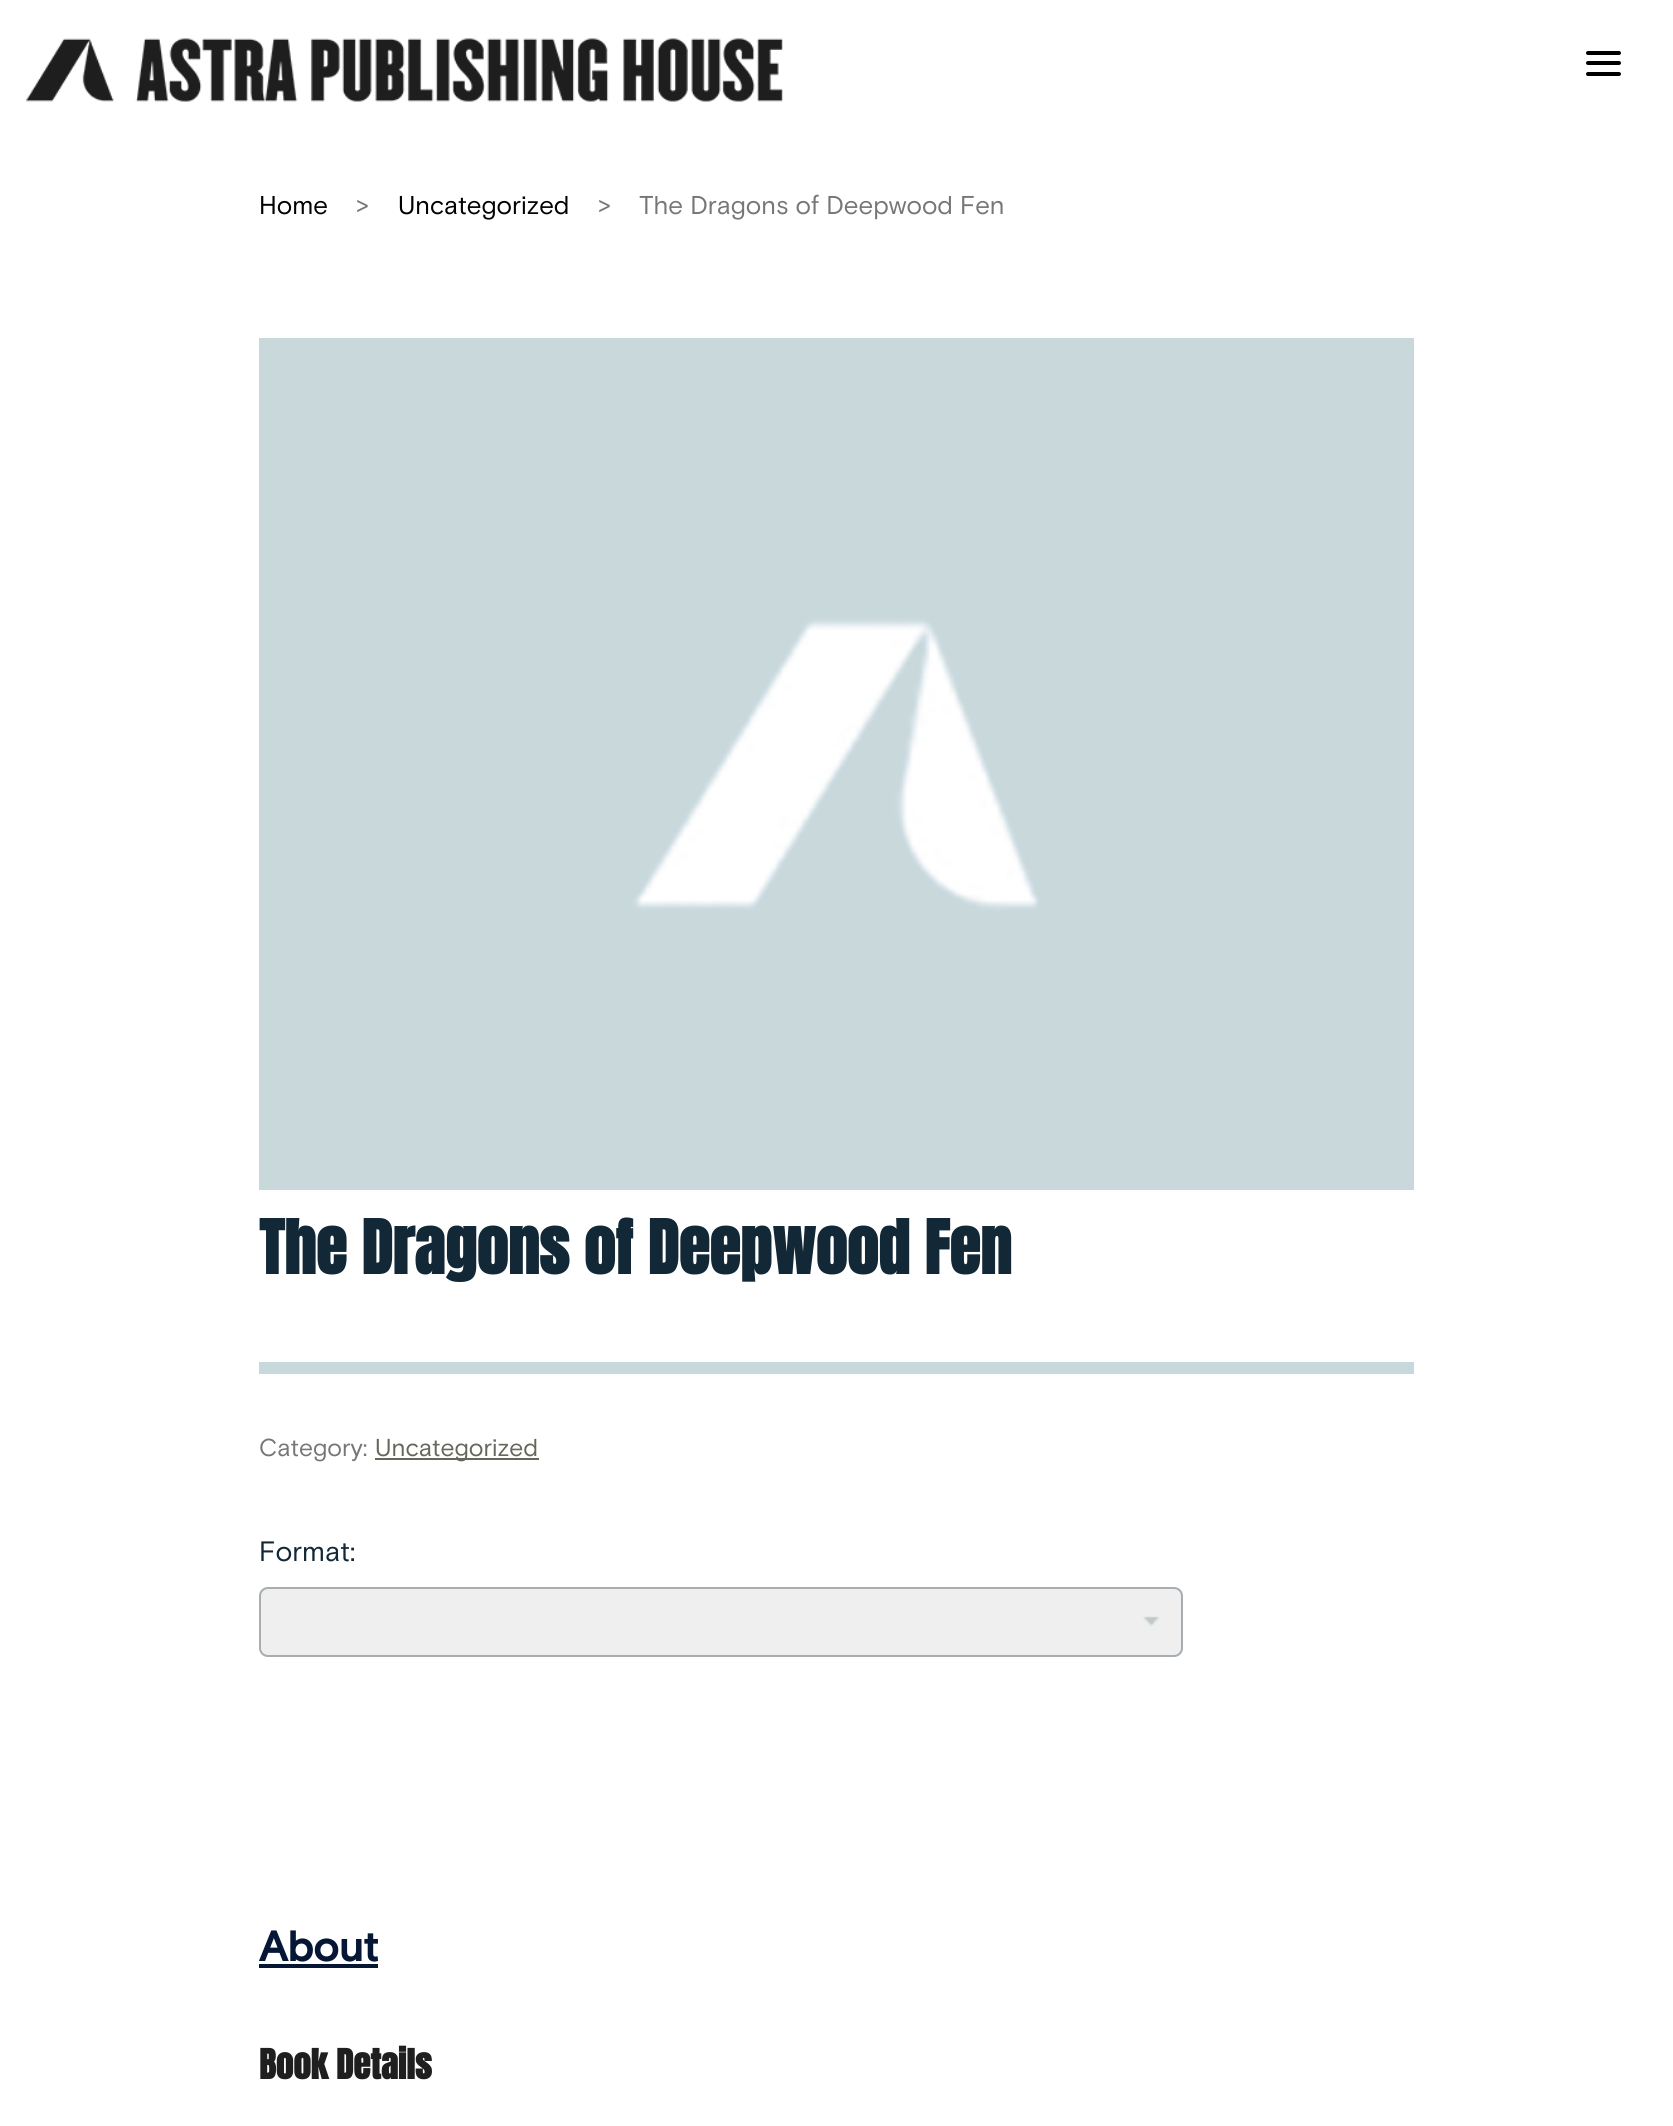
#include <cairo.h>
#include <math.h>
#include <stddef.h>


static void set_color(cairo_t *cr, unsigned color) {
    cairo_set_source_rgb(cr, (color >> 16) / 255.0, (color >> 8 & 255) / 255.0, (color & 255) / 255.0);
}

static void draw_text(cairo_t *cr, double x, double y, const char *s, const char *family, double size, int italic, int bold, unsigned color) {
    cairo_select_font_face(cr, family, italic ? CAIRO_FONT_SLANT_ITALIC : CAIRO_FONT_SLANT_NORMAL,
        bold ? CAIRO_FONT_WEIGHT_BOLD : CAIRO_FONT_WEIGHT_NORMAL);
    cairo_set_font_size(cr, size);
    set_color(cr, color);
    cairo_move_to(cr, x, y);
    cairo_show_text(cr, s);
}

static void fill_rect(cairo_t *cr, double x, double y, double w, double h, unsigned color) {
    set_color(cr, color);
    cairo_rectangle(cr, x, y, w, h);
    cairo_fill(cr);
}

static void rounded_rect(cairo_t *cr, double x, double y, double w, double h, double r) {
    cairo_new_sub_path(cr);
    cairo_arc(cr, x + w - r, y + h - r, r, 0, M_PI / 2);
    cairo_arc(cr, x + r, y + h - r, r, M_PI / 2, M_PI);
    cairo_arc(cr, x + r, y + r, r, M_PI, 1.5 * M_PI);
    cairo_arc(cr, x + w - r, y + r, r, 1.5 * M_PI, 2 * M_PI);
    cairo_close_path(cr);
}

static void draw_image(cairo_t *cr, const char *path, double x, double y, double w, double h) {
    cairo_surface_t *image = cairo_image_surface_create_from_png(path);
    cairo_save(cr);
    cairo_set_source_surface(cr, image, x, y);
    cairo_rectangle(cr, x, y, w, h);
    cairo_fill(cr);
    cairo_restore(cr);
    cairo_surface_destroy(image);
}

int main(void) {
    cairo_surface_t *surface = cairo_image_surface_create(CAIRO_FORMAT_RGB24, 1673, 2126);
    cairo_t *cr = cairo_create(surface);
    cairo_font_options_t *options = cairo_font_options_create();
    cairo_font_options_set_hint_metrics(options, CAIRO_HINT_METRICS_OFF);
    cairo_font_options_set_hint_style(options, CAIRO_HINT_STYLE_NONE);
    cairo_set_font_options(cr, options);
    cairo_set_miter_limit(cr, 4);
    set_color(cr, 0xFFFFFF);
    cairo_paint(cr);
    draw_image(cr, "assets/img1.png", 26, 38, 757, 64);
    set_color(cr, 0x000000);
    rounded_rect(cr, 1586, 61, 35, 4, 2);
    cairo_fill(cr);
    rounded_rect(cr, 1586, 51, 35, 4, 2);
    cairo_fill(cr);
    rounded_rect(cr, 1586, 72, 35, 4, 2);
    cairo_fill(cr);
    draw_text(cr, 259, 214, "Home", "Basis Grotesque", 25.75, 0, 0, 0x000000);
    draw_text(cr, 356, 214, ">", "Basis Grotesque", 25.75, 0, 0, 0x767676);
    draw_text(cr, 398, 214, "Uncategorized", "Basis Grotesque", 25.75, 0, 0, 0x000000);
    draw_text(cr, 598, 214, ">    The Dragons of Deepwood Fen", "Basis Grotesque", 25.75, 0, 0, 0x767676);
    draw_image(cr, "assets/img2.png", 259, 338, 1155, 852);
    draw_text(cr, 259, 1274, "The Dragons of Deepwood Fen", "Anton", 63, 0, 1, 0x122836);
    fill_rect(cr, 259, 1362, 1155, 12, 0xC7D9DC);
    draw_text(cr, 259, 1456, "Category:", "Basis Grotesque", 24.5, 0, 0, 0x767676);
    fill_rect(cr, 375, 1458, 164, 2, 0x646859);
    draw_text(cr, 375, 1456, "Uncategorized", "Basis Grotesque", 24.5, 0, 0, 0x646859);
    draw_text(cr, 259, 1561, "Format:", "Basis Grotesque", 28, 0, 0, 0x122836);
    set_color(cr, 0xEFEFEF);
    rounded_rect(cr, 259, 1587, 924, 70, 9);
    cairo_fill(cr);
    draw_image(cr, "assets/img3.png", 1143, 1616, 17, 10);
    rounded_rect(cr, 260, 1588, 922, 68, 8);
    set_color(cr, 0xA7ADB1);
    cairo_stroke(cr);
    draw_text(cr, 259, 1961, "About", "Basis Grotesque", 42, 0, 1, 0x051735);
    fill_rect(cr, 259, 1964, 119, 4, 0x051735);
    draw_text(cr, 259, 2079, "Book Details", "Anton", 35, 0, 1, 0x1F1F1F);
    cairo_surface_write_to_png(surface, "output.png");
    cairo_font_options_destroy(options);
    cairo_destroy(cr);
    cairo_surface_destroy(surface);
    return 0;
}
